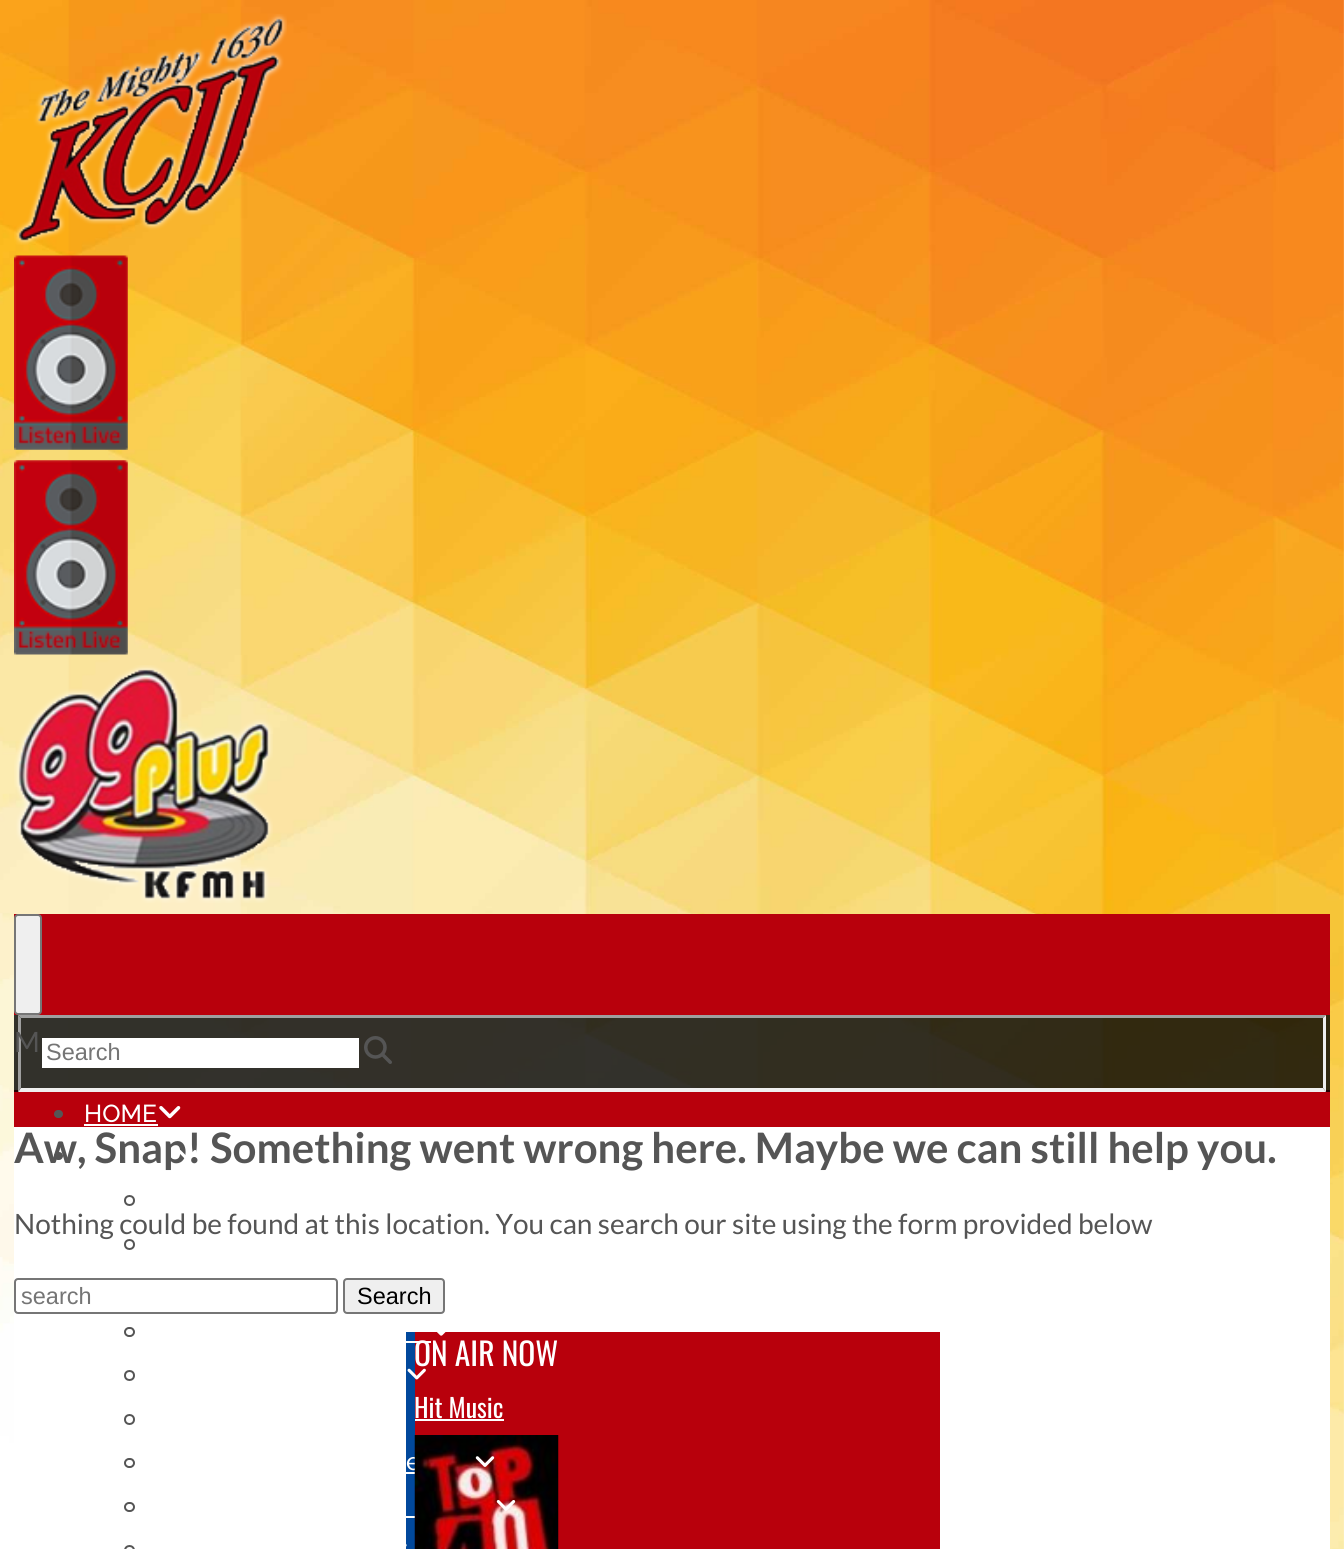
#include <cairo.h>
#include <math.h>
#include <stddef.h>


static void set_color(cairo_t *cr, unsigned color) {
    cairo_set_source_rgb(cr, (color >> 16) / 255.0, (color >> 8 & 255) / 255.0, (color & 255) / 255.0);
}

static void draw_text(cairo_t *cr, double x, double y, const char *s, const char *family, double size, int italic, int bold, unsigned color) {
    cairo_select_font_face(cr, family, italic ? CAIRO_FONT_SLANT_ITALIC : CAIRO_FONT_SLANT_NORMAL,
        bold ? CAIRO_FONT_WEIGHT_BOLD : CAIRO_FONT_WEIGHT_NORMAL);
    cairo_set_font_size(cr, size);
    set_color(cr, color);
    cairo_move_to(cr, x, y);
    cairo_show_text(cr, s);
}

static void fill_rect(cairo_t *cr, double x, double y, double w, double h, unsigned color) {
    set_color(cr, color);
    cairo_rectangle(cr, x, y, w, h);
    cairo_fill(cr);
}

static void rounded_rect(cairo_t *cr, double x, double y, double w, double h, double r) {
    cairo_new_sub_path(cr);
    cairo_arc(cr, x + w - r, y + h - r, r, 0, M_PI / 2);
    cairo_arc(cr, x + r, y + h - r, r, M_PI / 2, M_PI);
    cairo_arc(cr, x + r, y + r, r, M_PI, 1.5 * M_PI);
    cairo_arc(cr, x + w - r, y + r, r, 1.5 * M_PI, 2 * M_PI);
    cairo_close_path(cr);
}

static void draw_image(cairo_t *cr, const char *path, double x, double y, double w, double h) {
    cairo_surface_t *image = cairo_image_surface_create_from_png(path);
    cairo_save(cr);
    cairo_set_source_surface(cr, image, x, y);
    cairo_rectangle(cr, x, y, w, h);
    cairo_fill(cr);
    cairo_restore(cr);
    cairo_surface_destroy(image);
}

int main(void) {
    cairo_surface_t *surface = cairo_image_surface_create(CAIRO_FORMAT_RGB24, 1344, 1549);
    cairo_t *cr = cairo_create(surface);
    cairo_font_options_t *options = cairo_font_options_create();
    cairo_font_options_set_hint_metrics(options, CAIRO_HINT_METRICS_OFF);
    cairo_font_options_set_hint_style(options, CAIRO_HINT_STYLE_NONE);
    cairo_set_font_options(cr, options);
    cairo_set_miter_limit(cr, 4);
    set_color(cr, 0xFFFFFF);
    cairo_paint(cr);
    draw_image(cr, "assets/img1.png", 0, 0, 1344, 1549);
    draw_image(cr, "assets/img2.png", 14, 14, 273, 231);
    draw_image(cr, "assets/img3.png", 14, 255, 114, 195);
    draw_image(cr, "assets/img4.png", 14, 460, 114, 195);
    draw_image(cr, "assets/img5.png", 14, 665, 259, 238);
    fill_rect(cr, 14, 914, 1316, 101, 0xB8000C);
    set_color(cr, 0xEFEFEF);
    rounded_rect(cr, 15, 915, 26, 99, 3);
    cairo_fill_preserve(cr);
    set_color(cr, 0x767676);
    cairo_stroke(cr);
    fill_rect(cr, 14, 1090, 1316, 37, 0xB8000C);
    cairo_set_source_rgba(cr, 0, 0, 0, 0.8);
    cairo_rectangle(cr, 14, 1015, 1316, 77);
    cairo_fill(cr);
    set_color(cr, 0x9F9F9F);
    cairo_new_path(cr);
    cairo_move_to(cr, 18, 1015);
    cairo_line_to(cr, 1326, 1015);
    cairo_line_to(cr, 1323, 1018);
    cairo_line_to(cr, 21, 1018);
    cairo_close_path(cr);
    cairo_fill(cr);
    set_color(cr, 0xEFEFEF);
    cairo_new_path(cr);
    cairo_move_to(cr, 1326, 1015);
    cairo_line_to(cr, 1326, 1092);
    cairo_line_to(cr, 1323, 1088);
    cairo_line_to(cr, 1323, 1018);
    cairo_close_path(cr);
    cairo_fill(cr);
    cairo_new_path(cr);
    cairo_move_to(cr, 1326, 1092);
    cairo_line_to(cr, 18, 1092);
    cairo_line_to(cr, 21, 1088);
    cairo_line_to(cr, 1323, 1088);
    cairo_close_path(cr);
    cairo_fill(cr);
    set_color(cr, 0x9F9F9F);
    cairo_new_path(cr);
    cairo_move_to(cr, 18, 1092);
    cairo_line_to(cr, 18, 1015);
    cairo_line_to(cr, 21, 1018);
    cairo_line_to(cr, 21, 1088);
    cairo_close_path(cr);
    cairo_fill(cr);
    draw_text(cr, 14, 1052, "M", "Lato", 28, 0, 0, 0x555555);
    rounded_rect(cr, 54, 1110, 9, 8, 4);
    cairo_fill(cr);
    draw_text(cr, 84, 1122, "HOME", "Raleway Medium", 24.5, 0, 0, 0xFFFFFF);
    fill_rect(cr, 84, 1124, 74, 2, 0xFFFFFF);
    draw_image(cr, "assets/img6.png", 159, 1106, 22, 13);
    fill_rect(cr, 14, 1127, 1316, 422, 0xFFFFFF);
    set_color(cr, 0x555555);
    rounded_rect(cr, 54, 1152, 9, 8, 4);
    cairo_fill(cr);
    draw_text(cr, 14, 1163, "Aw, Snap! Something went wrong here. Maybe we can still help you.", "Lato", 42, 0, 1, 0x555555);
    draw_image(cr, "assets/img7.png", 180, 1150, 17, 9);
    cairo_arc(cr, 129.5, 1200.5, 4.5, 0, 2 * M_PI);
    cairo_stroke(cr);
    cairo_arc(cr, 129.5, 1244.5, 4.5, 0, 2 * M_PI);
    cairo_stroke(cr);
    rounded_rect(cr, 125, 1328, 9, 8, 4);
    cairo_stroke(cr);
    fill_rect(cr, 415, 1332, 525, 217, 0xB8000C);
    draw_image(cr, "assets/img8.png", 437, 1332, 9, 4);
    fill_rect(cr, 406, 1332, 9, 217, 0x01489C);
    fill_rect(cr, 406, 1341, 25, 2, 0xFFFFFF);
    cairo_arc(cr, 129.5, 1375.5, 4.5, 0, 2 * M_PI);
    set_color(cr, 0x555555);
    cairo_stroke(cr);
    draw_image(cr, "assets/img9.png", 407, 1368, 19, 12);
    cairo_arc(cr, 129.5, 1419.5, 4.5, 0, 2 * M_PI);
    cairo_stroke(cr);
    rounded_rect(cr, 125, 1459, 9, 8, 4);
    cairo_stroke(cr);
    draw_text(cr, 406, 1470, "e", "Raleway Medium", 24.5, 0, 0, 0xFFFFFF);
    fill_rect(cr, 406, 1472, 9, 2, 0xFFFFFF);
    fill_rect(cr, 406, 1516, 9, 2, 0xFFFFFF);
    draw_image(cr, "assets/img14.png", 414, 1435, 145, 114);
    draw_image(cr, "assets/img10.png", 475, 1456, 20, 11);
    rounded_rect(cr, 125, 1503, 9, 8, 4);
    set_color(cr, 0x555555);
    cairo_stroke(cr);
    draw_image(cr, "assets/img11.png", 496, 1500, 20, 11);
    cairo_arc(cr, 129.5, 1550.5, 4.5, 0, 2 * M_PI);
    cairo_stroke(cr);
    draw_image(cr, "assets/img12.png", 406, 1544, 1, 3);
    fill_rect(cr, 42, 1038, 317, 30, 0xFFFFFF);
    draw_text(cr, 46, 1060, "Search", "Liberation Sans", 23.5, 0, 0, 0x757575);
    draw_image(cr, "assets/img13.png", 364, 1036, 28, 28);
    draw_text(cr, 14, 1234, "Nothing could be found at this location. You can search our site using the form provided below", "Lato", 28, 0, 0, 0x555555);
    rounded_rect(cr, 15, 1279, 322, 34, 3);
    set_color(cr, 0x767676);
    cairo_stroke(cr);
    draw_text(cr, 21, 1304, "search", "Liberation Sans", 23.5, 0, 0, 0x757575);
    set_color(cr, 0xEFEFEF);
    rounded_rect(cr, 344, 1279, 100, 34, 3);
    cairo_fill_preserve(cr);
    set_color(cr, 0x767676);
    cairo_stroke(cr);
    draw_text(cr, 357, 1304, "Search", "Liberation Sans", 23.5, 0, 0, 0x000000);
    draw_text(cr, 414, 1366, "ON AIR NOW", "Oswald", 31.5, 0, 0, 0xFFFFFF);
    draw_text(cr, 414, 1418, "Hit Music", "Oswald", 26, 0, 0, 0xFFFFFF);
    fill_rect(cr, 415, 1419, 89, 2, 0xFFFFFF);
    cairo_surface_write_to_png(surface, "output.png");
    cairo_font_options_destroy(options);
    cairo_destroy(cr);
    cairo_surface_destroy(surface);
    return 0;
}
